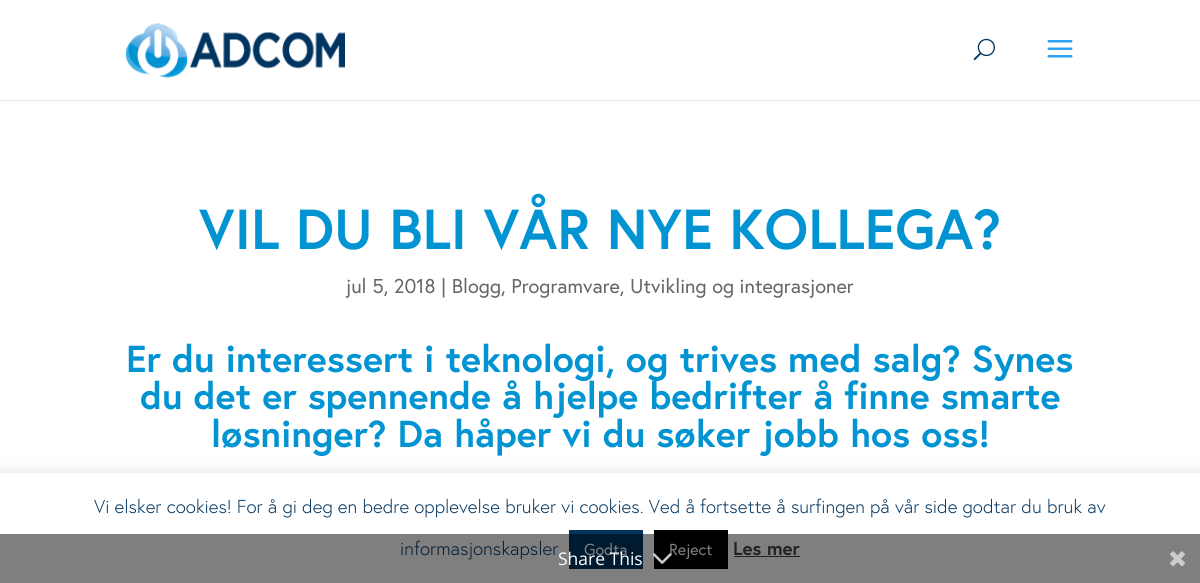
#include <cairo.h>
#include <math.h>
#include <stddef.h>


static void set_color(cairo_t *cr, unsigned color) {
    cairo_set_source_rgb(cr, (color >> 16) / 255.0, (color >> 8 & 255) / 255.0, (color & 255) / 255.0);
}

static void draw_text(cairo_t *cr, double x, double y, const char *s, const char *family, double size, int italic, int bold, unsigned color) {
    cairo_select_font_face(cr, family, italic ? CAIRO_FONT_SLANT_ITALIC : CAIRO_FONT_SLANT_NORMAL,
        bold ? CAIRO_FONT_WEIGHT_BOLD : CAIRO_FONT_WEIGHT_NORMAL);
    cairo_set_font_size(cr, size);
    set_color(cr, color);
    cairo_move_to(cr, x, y);
    cairo_show_text(cr, s);
}

static void fill_rect(cairo_t *cr, double x, double y, double w, double h, unsigned color) {
    set_color(cr, color);
    cairo_rectangle(cr, x, y, w, h);
    cairo_fill(cr);
}

static void rounded_rect(cairo_t *cr, double x, double y, double w, double h, double r) {
    cairo_new_sub_path(cr);
    cairo_arc(cr, x + w - r, y + h - r, r, 0, M_PI / 2);
    cairo_arc(cr, x + r, y + h - r, r, M_PI / 2, M_PI);
    cairo_arc(cr, x + r, y + r, r, M_PI, 1.5 * M_PI);
    cairo_arc(cr, x + w - r, y + r, r, 1.5 * M_PI, 2 * M_PI);
    cairo_close_path(cr);
}

static void draw_shadow(cairo_t *cr, double x, double y, double w, double h, double r, double blur, double alpha) {
    cairo_push_group_with_content(cr, CAIRO_CONTENT_ALPHA);
    cairo_set_operator(cr, CAIRO_OPERATOR_SOURCE);
    for (int i = 15; i >= -15 && fmin(w, h) + blur * i / 3 > 0; i -= 2) {
        double e = blur * i / 6;
        cairo_set_source_rgba(cr, 0, 0, 0, alpha * erfc((i - 1) / 8.5) / 2);
        rounded_rect(cr, x - e, y - e, w + 2 * e, h + 2 * e, fmax(0, fmin(r + e + blur * .6, fmin(w, h) / 2 + e)));
        cairo_fill(cr);
    }
    cairo_pattern_t *soft = cairo_pop_group(cr);
    cairo_mask(cr, soft);
    cairo_pattern_destroy(soft);
}

static void draw_image(cairo_t *cr, const char *path, double x, double y, double w, double h) {
    cairo_surface_t *image = cairo_image_surface_create_from_png(path);
    cairo_save(cr);
    cairo_set_source_surface(cr, image, x, y);
    cairo_rectangle(cr, x, y, w, h);
    cairo_fill(cr);
    cairo_restore(cr);
    cairo_surface_destroy(image);
}

int main(void) {
    cairo_surface_t *surface = cairo_image_surface_create(CAIRO_FORMAT_RGB24, 1200, 583);
    cairo_t *cr = cairo_create(surface);
    cairo_font_options_t *options = cairo_font_options_create();
    cairo_font_options_set_hint_metrics(options, CAIRO_HINT_METRICS_OFF);
    cairo_font_options_set_hint_style(options, CAIRO_HINT_STYLE_NONE);
    cairo_set_font_options(cr, options);
    cairo_set_miter_limit(cr, 4);
    set_color(cr, 0xFFFFFF);
    cairo_paint(cr);
    fill_rect(cr, 0, 100, 1200, 1, 0xE6E6E6);
    draw_image(cr, "assets/img1.png", 126, 23, 219, 55);
    draw_image(cr, "assets/img2.png", 973, 38, 22, 23);
    draw_image(cr, "assets/img3.png", 1047, 40, 26, 18);
    draw_text(cr, 199, 249, "VIL DU BLI VÅR NYE KOLLEGA?", "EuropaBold", 56.25, 0, 1, 0x0294D2);
    draw_text(cr, 346, 293, "jul 5, 2018 | Blogg, Programvare, Utvikling og integrasjoner", "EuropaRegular", 20, 0, 0, 0x666666);
    draw_text(cr, 126, 372, "Er du interessert i teknologi, og trives med salg? Synes", "EuropaBold", 37.5, 0, 1, 0x0294D2);
    draw_text(cr, 140, 409, "du det er spennende å hjelpe bedrifter å finne smarte", "EuropaBold", 37.5, 0, 1, 0x0294D2);
    draw_text(cr, 211, 447, "løsninger? Da håper vi du søker jobb hos oss!", "EuropaBold", 37.5, 0, 1, 0x0294D2);
    set_color(cr, 0xACABAB);
    draw_shadow(cr, 0, 471, 1200, 112, 0, 6, 0.3);
    fill_rect(cr, 0, 473, 1200, 110, 0xFFFFFF);
    draw_text(cr, 94, 513, "Vi elsker cookies! For å gi deg en bedre opplevelse bruker vi cookies. Ved å fortsette å surfingen på vår side godtar du bruk av", "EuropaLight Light", 18.75, 0, 0, 0x00345F);
    draw_text(cr, 400, 555, "informasjonskapsler.", "EuropaLight Light", 18.75, 0, 0, 0x00345F);
    fill_rect(cr, 569, 530, 74, 39, 0x00345F);
    draw_text(cr, 584, 555, "Godta", "EuropaRegular", 16, 0, 0, 0xFFFFFF);
    fill_rect(cr, 654, 530, 74, 39, 0x000000);
    draw_text(cr, 669, 555, "Reject", "EuropaRegular", 16, 0, 0, 0xFFFFFF);
    draw_text(cr, 733, 555, "Les mer", "EuropaBold", 18.75, 0, 1, 0x444444);
    fill_rect(cr, 734, 556, 66, 1, 0x444444);
    cairo_set_source_rgba(cr, 0, 0, 0, 0.5);
    cairo_rectangle(cr, 0, 534, 1200, 49);
    cairo_fill(cr);
    draw_text(cr, 558, 565, "Share This", "Open Sans", 17.5, 0, 0, 0xFFFFFF);
    draw_image(cr, "assets/img4.png", 652, 553, 20, 11);
    draw_image(cr, "assets/img5.png", 1170, 551, 15, 16);
    cairo_surface_write_to_png(surface, "output.png");
    cairo_font_options_destroy(options);
    cairo_destroy(cr);
    cairo_surface_destroy(surface);
    return 0;
}
